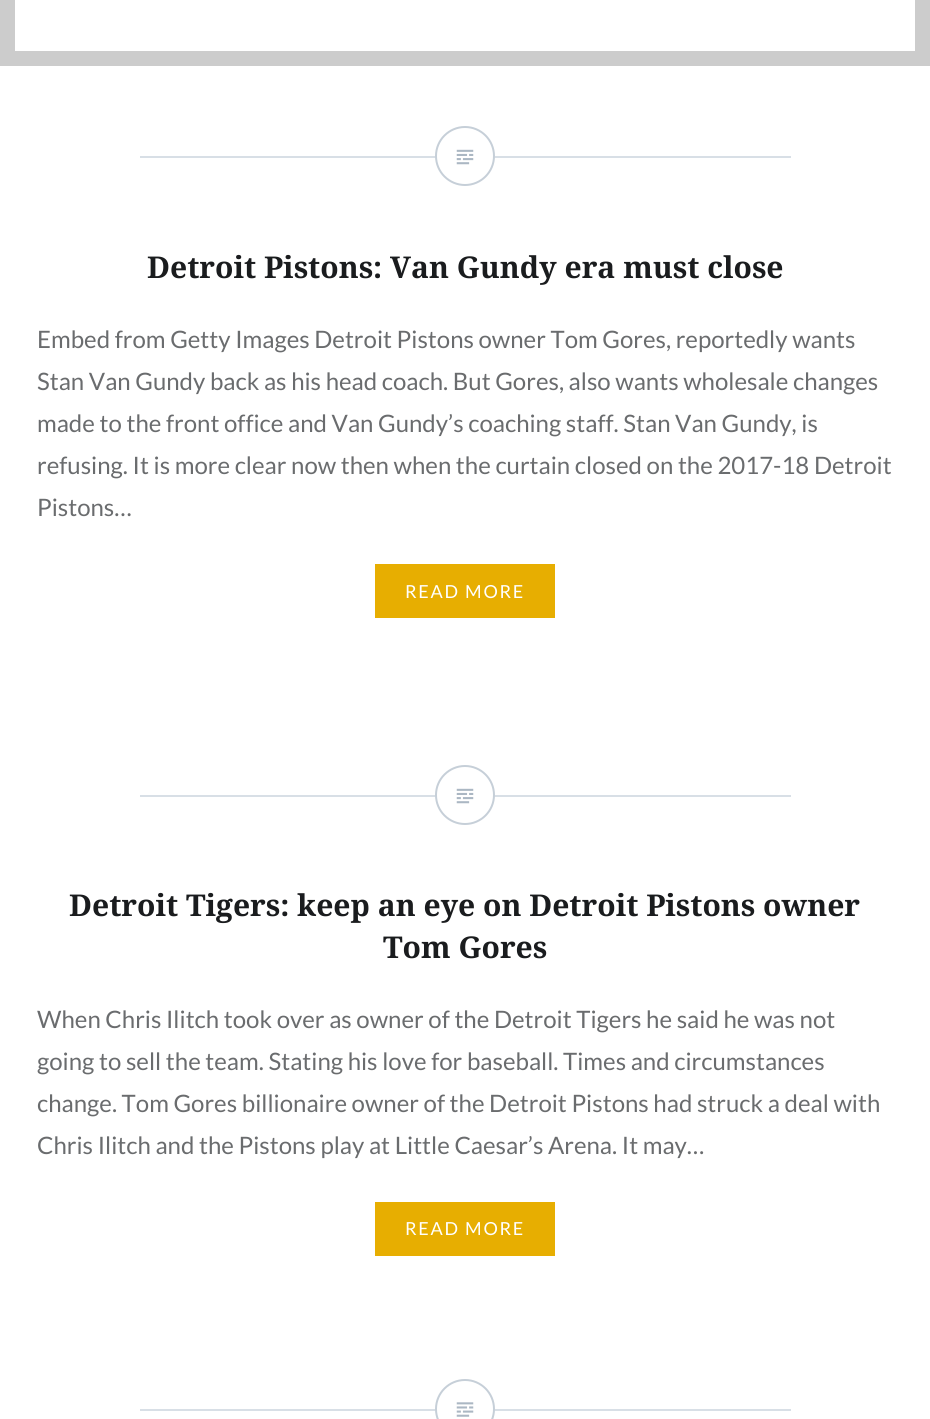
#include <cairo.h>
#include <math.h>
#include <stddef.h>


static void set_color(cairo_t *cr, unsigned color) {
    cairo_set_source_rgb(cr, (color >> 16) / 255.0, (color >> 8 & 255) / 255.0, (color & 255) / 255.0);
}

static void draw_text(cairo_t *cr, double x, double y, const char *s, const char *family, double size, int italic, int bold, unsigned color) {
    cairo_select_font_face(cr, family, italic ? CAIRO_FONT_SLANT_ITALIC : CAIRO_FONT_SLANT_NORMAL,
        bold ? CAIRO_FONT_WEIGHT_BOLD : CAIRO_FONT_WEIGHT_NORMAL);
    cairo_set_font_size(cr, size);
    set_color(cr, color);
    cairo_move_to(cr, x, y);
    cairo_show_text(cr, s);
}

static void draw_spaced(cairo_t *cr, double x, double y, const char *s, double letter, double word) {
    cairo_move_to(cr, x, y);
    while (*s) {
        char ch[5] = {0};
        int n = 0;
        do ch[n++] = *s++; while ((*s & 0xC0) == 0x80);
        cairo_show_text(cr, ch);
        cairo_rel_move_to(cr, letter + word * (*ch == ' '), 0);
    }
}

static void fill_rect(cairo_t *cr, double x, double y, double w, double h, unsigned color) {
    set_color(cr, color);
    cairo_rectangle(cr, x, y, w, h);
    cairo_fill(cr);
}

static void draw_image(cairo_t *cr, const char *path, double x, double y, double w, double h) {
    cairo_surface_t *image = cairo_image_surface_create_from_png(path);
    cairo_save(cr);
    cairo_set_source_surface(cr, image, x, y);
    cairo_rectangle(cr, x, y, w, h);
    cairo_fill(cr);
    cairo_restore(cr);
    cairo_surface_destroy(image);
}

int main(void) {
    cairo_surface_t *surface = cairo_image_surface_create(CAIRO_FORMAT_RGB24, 930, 1419);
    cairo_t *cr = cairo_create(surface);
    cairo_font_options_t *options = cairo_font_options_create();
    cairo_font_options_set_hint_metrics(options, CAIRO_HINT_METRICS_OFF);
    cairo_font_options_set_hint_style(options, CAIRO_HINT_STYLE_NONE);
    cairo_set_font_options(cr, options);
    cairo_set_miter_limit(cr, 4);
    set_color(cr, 0xFFFFFF);
    cairo_paint(cr);
    cairo_rectangle(cr, 7.5, -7.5, 915, 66);
    set_color(cr, 0xCCCCCC);
    cairo_set_line_width(cr, 15);
    cairo_stroke(cr);
    fill_rect(cr, 140, 156, 651, 2, 0xD8DFE6);
    set_color(cr, 0xFFFFFF);
    cairo_arc(cr, 465, 156, 29, 0, 2 * M_PI);
    cairo_fill_preserve(cr);
    set_color(cr, 0xC6CFD8);
    cairo_set_line_width(cr, 2);
    cairo_stroke(cr);
    draw_image(cr, "assets/img1.png", 456, 149, 18, 16);
    draw_text(cr, 147, 278, "Detroit Pistons: Van Gundy era must close", "Noto Serif", 30, 0, 1, 0x1A1C1E);
    draw_text(cr, 37, 348, "Embed from Getty Images Detroit Pistons owner Tom Gores, reportedly wants", "Lato", 24, 0, 0, 0x6A6C6E);
    draw_text(cr, 37, 390, "Stan Van Gundy back as his head coach. But Gores, also wants wholesale changes", "Lato", 24, 0, 0, 0x6A6C6E);
    draw_text(cr, 37, 432, "made to the front office and Van Gundy’s coaching staff. Stan Van Gundy, is", "Lato", 24, 0, 0, 0x6A6C6E);
    draw_text(cr, 37, 474, "refusing. It is more clear now then when the curtain closed on the 2017-18 Detroit", "Lato", 24, 0, 0, 0x6A6C6E);
    draw_text(cr, 37, 516, "Pistons…", "Lato", 24, 0, 0, 0x6A6C6E);
    fill_rect(cr, 375, 564, 180, 54, 0xE7AE01);
    cairo_set_font_size(cr, 18);
    set_color(cr, 0xFFFFFF);
    draw_spaced(cr, 405, 598, "READ MORE", 1.75, 0);
    fill_rect(cr, 140, 795, 651, 2, 0xD8DFE6);
    set_color(cr, 0xFFFFFF);
    cairo_new_path(cr);
    cairo_arc(cr, 465, 795, 29, 0, 2 * M_PI);
    cairo_fill_preserve(cr);
    set_color(cr, 0xC6CFD8);
    cairo_stroke(cr);
    draw_image(cr, "assets/img1.png", 456, 788, 18, 16);
    draw_text(cr, 69, 916, "Detroit Tigers: keep an eye on Detroit Pistons owner", "Noto Serif", 30, 0, 1, 0x1A1C1E);
    draw_text(cr, 383, 958, "Tom Gores", "Noto Serif", 30, 0, 1, 0x1A1C1E);
    draw_text(cr, 37, 1028, "When Chris Ilitch took over as owner of the Detroit Tigers he said he was not", "Lato", 24, 0, 0, 0x6A6C6E);
    draw_text(cr, 37, 1070, "going to sell the team. Stating his love for baseball. Times and circumstances", "Lato", 24, 0, 0, 0x6A6C6E);
    draw_text(cr, 37, 1112, "change. Tom Gores billionaire owner of the Detroit Pistons had struck a deal with", "Lato", 24, 0, 0, 0x6A6C6E);
    draw_text(cr, 37, 1154, "Chris Ilitch and the Pistons play at Little Caesar’s Arena. It may…", "Lato", 24, 0, 0, 0x6A6C6E);
    fill_rect(cr, 375, 1202, 180, 54, 0xE7AE01);
    cairo_set_font_size(cr, 18);
    set_color(cr, 0xFFFFFF);
    draw_spaced(cr, 405, 1235, "READ MORE", 1.75, 0);
    fill_rect(cr, 140, 1409, 651, 2, 0xD8DFE6);
    set_color(cr, 0xFFFFFF);
    cairo_new_path(cr);
    cairo_arc(cr, 465, 1409, 29, 0, 2 * M_PI);
    cairo_fill_preserve(cr);
    set_color(cr, 0xC6CFD8);
    cairo_stroke(cr);
    draw_image(cr, "assets/img2.png", 456, 1402, 18, 15);
    cairo_surface_write_to_png(surface, "output.png");
    cairo_font_options_destroy(options);
    cairo_destroy(cr);
    cairo_surface_destroy(surface);
    return 0;
}
